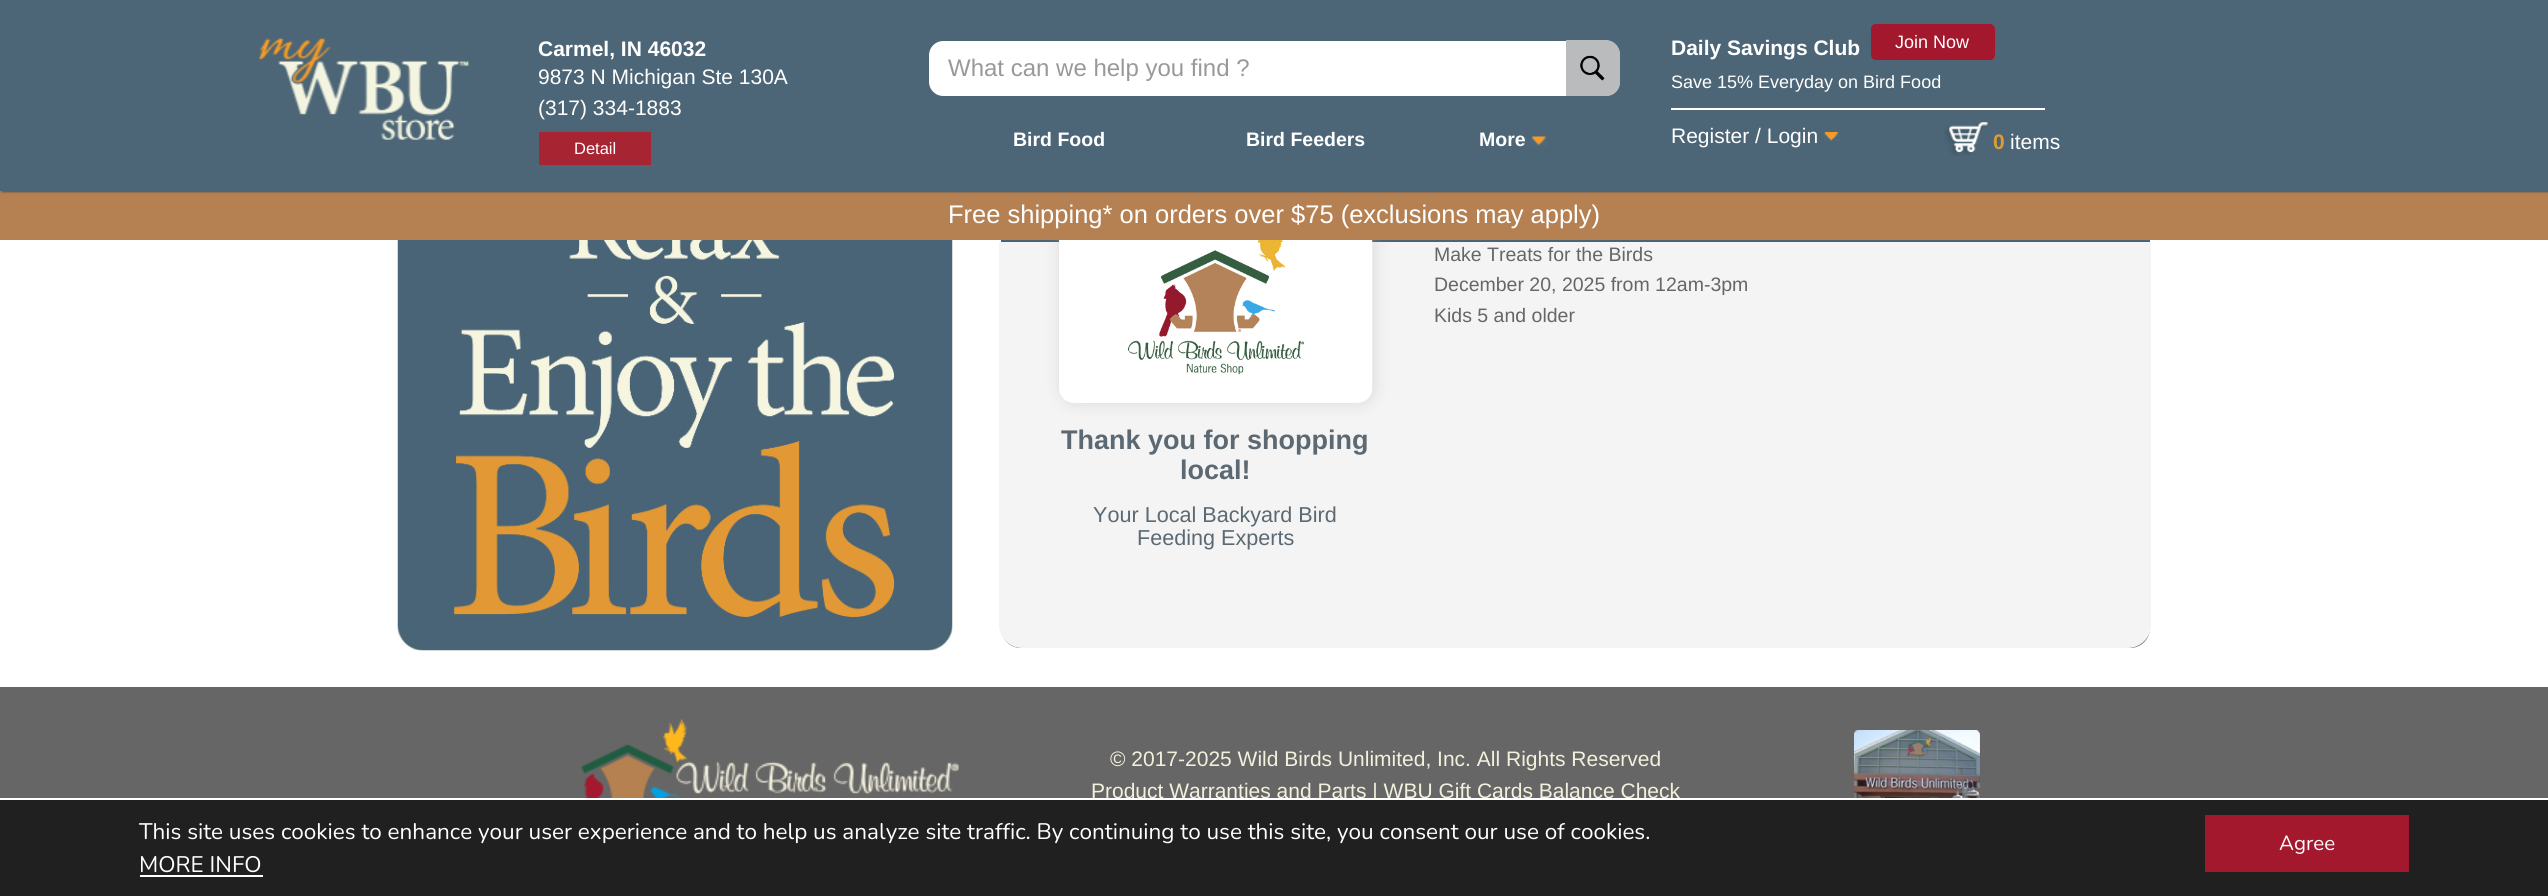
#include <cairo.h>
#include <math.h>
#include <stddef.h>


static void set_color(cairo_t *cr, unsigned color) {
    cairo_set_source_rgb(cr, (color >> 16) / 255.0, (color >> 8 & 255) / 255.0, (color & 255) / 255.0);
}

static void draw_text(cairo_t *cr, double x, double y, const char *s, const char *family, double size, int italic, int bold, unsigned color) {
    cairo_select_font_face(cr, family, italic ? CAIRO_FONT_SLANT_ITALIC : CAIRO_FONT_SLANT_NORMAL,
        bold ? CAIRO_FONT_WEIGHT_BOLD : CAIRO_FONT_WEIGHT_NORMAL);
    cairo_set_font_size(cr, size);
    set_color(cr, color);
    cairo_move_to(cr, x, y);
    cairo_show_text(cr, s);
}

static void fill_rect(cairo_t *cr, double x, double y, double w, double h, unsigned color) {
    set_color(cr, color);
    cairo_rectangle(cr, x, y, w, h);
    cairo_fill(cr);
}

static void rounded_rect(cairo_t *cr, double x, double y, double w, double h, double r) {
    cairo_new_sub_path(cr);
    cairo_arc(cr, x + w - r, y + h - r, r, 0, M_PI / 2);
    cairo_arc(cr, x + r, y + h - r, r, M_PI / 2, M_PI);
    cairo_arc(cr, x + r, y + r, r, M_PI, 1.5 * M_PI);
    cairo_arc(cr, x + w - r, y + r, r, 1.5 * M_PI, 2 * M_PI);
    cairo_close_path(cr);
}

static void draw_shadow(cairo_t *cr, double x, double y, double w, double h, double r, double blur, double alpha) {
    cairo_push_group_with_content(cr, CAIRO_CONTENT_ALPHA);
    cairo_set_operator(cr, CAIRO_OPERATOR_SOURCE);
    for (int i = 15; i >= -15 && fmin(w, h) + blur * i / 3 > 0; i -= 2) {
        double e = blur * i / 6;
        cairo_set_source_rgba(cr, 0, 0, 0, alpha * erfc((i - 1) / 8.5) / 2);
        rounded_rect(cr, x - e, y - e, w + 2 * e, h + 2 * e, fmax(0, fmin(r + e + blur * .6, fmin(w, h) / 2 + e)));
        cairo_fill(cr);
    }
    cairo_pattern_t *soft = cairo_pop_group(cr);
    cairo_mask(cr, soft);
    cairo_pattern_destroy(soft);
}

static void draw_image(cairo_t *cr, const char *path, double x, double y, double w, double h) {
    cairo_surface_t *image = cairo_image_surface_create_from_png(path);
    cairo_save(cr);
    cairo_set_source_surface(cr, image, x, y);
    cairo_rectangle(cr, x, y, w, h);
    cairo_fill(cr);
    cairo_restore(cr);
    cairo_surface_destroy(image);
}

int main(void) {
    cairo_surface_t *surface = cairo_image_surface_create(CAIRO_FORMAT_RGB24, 2548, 896);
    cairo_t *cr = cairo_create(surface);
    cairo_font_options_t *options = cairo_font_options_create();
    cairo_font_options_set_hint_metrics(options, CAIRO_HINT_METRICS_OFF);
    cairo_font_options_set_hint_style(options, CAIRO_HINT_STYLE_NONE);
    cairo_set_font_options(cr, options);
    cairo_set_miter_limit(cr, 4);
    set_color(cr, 0xFFFFFF);
    cairo_paint(cr);
    set_color(cr, 0x496475);
    rounded_rect(cr, 999.5, 166.5, 1152, 483, 21.5);
    cairo_fill_preserve(cr);
    set_color(cr, 0xFFFFFF);
    cairo_set_line_width(cr, 3);
    cairo_stroke(cr);
    set_color(cr, 0xF4F4F4);
    cairo_new_path(cr);
    cairo_move_to(cr, 999, 242);
    cairo_line_to(cr, 2151, 242);
    cairo_line_to(cr, 2151, 625);
    cairo_curve_to(cr, 2151, 637.5, 2140.5, 648, 2128, 648);
    cairo_line_to(cr, 1022, 648);
    cairo_curve_to(cr, 1009.5, 648, 999, 637.5, 999, 625);
    cairo_close_path(cr);
    cairo_fill(cr);
    set_color(cr, 0xA0A0A0);
    draw_shadow(cr, 1059, 198, 317, 207, 17, 7, 0.26);
    fill_rect(cr, 0, 191, 2548, 49, 0xB58152);
    set_color(cr, 0x525252);
    draw_shadow(cr, 2, 2, 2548, 190, 0, 1, 1);
    fill_rect(cr, 0, 0, 2548, 191, 0x4C6677);
    draw_image(cr, "assets/img1.png", 259, 38, 211, 102);
    draw_text(cr, 538, 56, "Carmel, IN 46032", "Liberation Sans", 21, 0, 1, 0xFFFFFF);
    draw_text(cr, 538, 84, "9873 N Michigan Ste 130A", "Liberation Sans", 21, 0, 0, 0xFFFFFF);
    draw_text(cr, 538, 115, "(317) 334-1883", "Liberation Sans", 21, 0, 0, 0xFFFFFF);
    fill_rect(cr, 539, 132, 112, 33, 0xA72532);
    draw_text(cr, 574, 154, "Detail", "Liberation Sans", 16.5, 0, 0, 0xFFFFFF);
    cairo_new_path(cr);
    cairo_move_to(cr, 943, 42);
    cairo_line_to(cr, 1567, 42);
    cairo_line_to(cr, 1567, 95);
    cairo_line_to(cr, 943, 95);
    cairo_curve_to(cr, 936, 95, 930, 89, 930, 82);
    cairo_line_to(cr, 930, 55);
    cairo_curve_to(cr, 930, 48, 936, 42, 943, 42);
    cairo_close_path(cr);
    cairo_fill_preserve(cr);
    cairo_set_line_width(cr, 2);
    cairo_stroke(cr);
    draw_text(cr, 948, 76, "What can we help you find ?", "Liberation Sans", 24, 0, 0, 0x999999);
    set_color(cr, 0xBABBBD);
    cairo_new_path(cr);
    cairo_move_to(cr, 1566, 41);
    cairo_line_to(cr, 1606, 41);
    cairo_curve_to(cr, 1613.5, 41, 1620, 47.5, 1620, 55);
    cairo_line_to(cr, 1620, 82);
    cairo_curve_to(cr, 1620, 89.5, 1613.5, 96, 1606, 96);
    cairo_line_to(cr, 1566, 96);
    cairo_close_path(cr);
    cairo_fill(cr);
    cairo_set_fill_rule(cr, CAIRO_FILL_RULE_EVEN_ODD);
    cairo_new_path(cr);
    cairo_move_to(cr, 1566, 40);
    cairo_line_to(cr, 1606, 40);
    cairo_curve_to(cr, 1614, 40, 1620, 47, 1620, 54);
    cairo_line_to(cr, 1620, 82);
    cairo_curve_to(cr, 1620, 90, 1614, 96, 1606, 96);
    cairo_line_to(cr, 1566, 96);
    cairo_close_path(cr);
    cairo_move_to(cr, 1566, 42);
    cairo_line_to(cr, 1606, 42);
    cairo_curve_to(cr, 1613, 42, 1618, 47, 1618, 54);
    cairo_line_to(cr, 1618, 82);
    cairo_curve_to(cr, 1618, 89, 1613, 94, 1606, 94);
    cairo_line_to(cr, 1566, 94);
    cairo_close_path(cr);
    cairo_fill(cr);
    draw_image(cr, "assets/img2.png", 1580, 55, 25, 26);
    draw_text(cr, 1013, 146, "Bird Food", "Liberation Sans", 19.5, 0, 1, 0xFFFFFF);
    draw_text(cr, 1246, 146, "Bird Feeders", "Liberation Sans", 19.5, 0, 1, 0xFFFFFF);
    draw_text(cr, 1479, 146, "More", "Liberation Sans", 19.5, 0, 1, 0xFFFFFF);
    draw_image(cr, "assets/img3.png", 1531, 136, 16, 10);
    draw_text(cr, 1671, 55, "Daily Savings Club", "Liberation Sans", 21, 0, 1, 0xFFFFFF);
    set_color(cr, 0xA4182D);
    rounded_rect(cr, 1871, 24, 124, 36, 5);
    cairo_fill(cr);
    draw_text(cr, 1895, 48, "Join Now", "Liberation Sans", 18, 0, 0, 0xFFFFFF);
    draw_text(cr, 1671, 88, "Save 15% Everyday on Bird Food", "Liberation Sans", 18, 0, 0, 0xFFFFFF);
    fill_rect(cr, 1671, 108, 374, 2, 0xFFFFFF);
    draw_text(cr, 1671, 143, "Register / Login", "Liberation Sans", 21, 0, 0, 0xFFFFFF);
    draw_image(cr, "assets/img4.png", 1824, 132, 15, 9);
    draw_image(cr, "assets/img5.png", 1944, 122, 44, 34);
    draw_text(cr, 1993, 149, "0", "Liberation Sans", 21, 0, 1, 0xE29A35);
    draw_text(cr, 2010, 149, "items", "Liberation Sans", 21, 0, 0, 0xFFFFFF);
    draw_text(cr, 948, 223, "Free shipping* on orders over $75 (exclusions may apply)", "Liberation Sans", 25.5, 0, 0, 0xFFFFFF);
    draw_image(cr, "assets/img6.png", 397, 240, 556, 411);
    draw_text(cr, 1434, 261, "Make Treats for the Birds", "Liberation Sans", 19.5, 0, 0, 0x666666);
    draw_text(cr, 1434, 291, "December 20, 2025 from 12am-3pm", "Liberation Sans", 19.5, 0, 0, 0x666666);
    draw_text(cr, 1434, 322, "Kids 5 and older", "Liberation Sans", 19.5, 0, 0, 0x666666);
    draw_image(cr, "assets/img7.png", 1059, 240, 314, 163);
    draw_text(cr, 1061, 449, "Thank you for shopping", "Liberation Sans", 27, 0, 1, 0x5C6972);
    draw_text(cr, 1180, 479, "local!", "Liberation Sans", 27, 0, 1, 0x5C6972);
    draw_text(cr, 1093, 522, "Your Local Backyard Bird", "Liberation Sans", 21.6, 0, 0, 0x5C6972);
    draw_text(cr, 1137, 545, "Feeding Experts", "Liberation Sans", 21.6, 0, 0, 0x5C6972);
    fill_rect(cr, 0, 687, 2548, 111, 0x666666);
    draw_image(cr, "assets/img8.png", 581, 719, 378, 79);
    draw_text(cr, 1110, 766, "© 2017-2025 Wild Birds Unlimited, Inc. All Rights Reserved", "Liberation Sans", 21, 0, 0, 0xF3F0DC);
    draw_text(cr, 1091, 798, "Product Warranties and Parts | WBU Gift Cards Balance Check", "Liberation Sans", 21, 0, 0, 0xF3F0DC);
    draw_image(cr, "assets/img9.png", 1854, 730, 126, 68);
    fill_rect(cr, 0, 800, 2548, 96, 0x202020);
    fill_rect(cr, 1117, 798, 549, 2, 0xFFFFFF);
    draw_text(cr, 139, 839, "This site uses cookies to enhance your user experience and to help us analyze site traffic. By continuing to use this site, you consent our use of cookies.", "Nunito", 22.5, 0, 0, 0xFFFFFF);
    draw_text(cr, 139, 872, "MORE INFO", "Nunito", 22.5, 0, 0, 0xFFFFFF);
    fill_rect(cr, 140, 875, 123, 2, 0xFFFFFF);
    fill_rect(cr, 2205, 815, 204, 57, 0xA4182D);
    draw_text(cr, 2279, 850, "Agree", "Nunito", 20.5, 0, 0, 0xFFFFFF);
    cairo_surface_write_to_png(surface, "output.png");
    cairo_font_options_destroy(options);
    cairo_destroy(cr);
    cairo_surface_destroy(surface);
    return 0;
}
